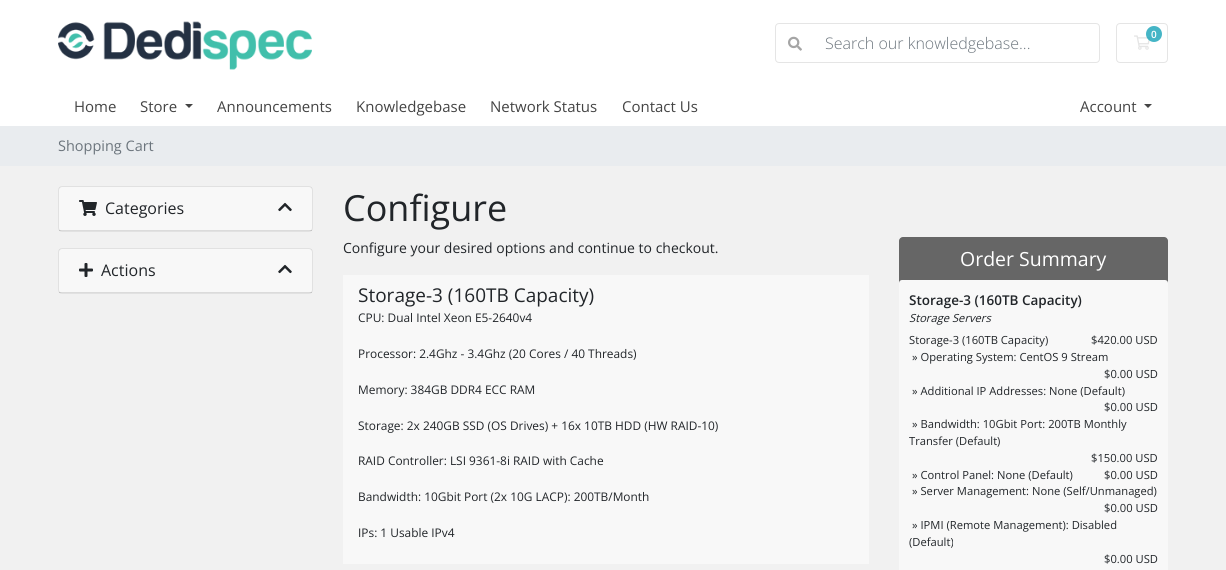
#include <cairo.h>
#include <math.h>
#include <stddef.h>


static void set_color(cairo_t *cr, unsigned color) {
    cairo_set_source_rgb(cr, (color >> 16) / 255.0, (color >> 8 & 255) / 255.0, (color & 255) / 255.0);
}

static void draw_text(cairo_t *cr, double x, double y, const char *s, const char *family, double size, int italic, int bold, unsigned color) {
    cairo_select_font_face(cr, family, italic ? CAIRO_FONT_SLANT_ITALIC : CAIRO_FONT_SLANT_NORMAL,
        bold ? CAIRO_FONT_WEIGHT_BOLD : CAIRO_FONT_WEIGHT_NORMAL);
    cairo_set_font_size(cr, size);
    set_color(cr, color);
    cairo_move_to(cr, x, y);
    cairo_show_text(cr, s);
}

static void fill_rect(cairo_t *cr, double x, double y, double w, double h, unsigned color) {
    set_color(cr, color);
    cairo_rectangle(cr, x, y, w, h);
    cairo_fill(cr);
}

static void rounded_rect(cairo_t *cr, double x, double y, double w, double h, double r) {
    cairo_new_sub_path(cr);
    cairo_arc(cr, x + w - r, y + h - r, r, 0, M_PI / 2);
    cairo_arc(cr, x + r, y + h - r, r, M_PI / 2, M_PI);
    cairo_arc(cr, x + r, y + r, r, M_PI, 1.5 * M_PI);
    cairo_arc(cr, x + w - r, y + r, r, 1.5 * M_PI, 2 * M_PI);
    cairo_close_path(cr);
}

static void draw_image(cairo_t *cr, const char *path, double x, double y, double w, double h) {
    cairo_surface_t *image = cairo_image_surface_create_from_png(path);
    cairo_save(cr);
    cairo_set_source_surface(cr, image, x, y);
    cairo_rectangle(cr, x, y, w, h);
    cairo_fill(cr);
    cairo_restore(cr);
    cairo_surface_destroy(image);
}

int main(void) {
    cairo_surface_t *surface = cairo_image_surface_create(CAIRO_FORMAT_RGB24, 1226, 570);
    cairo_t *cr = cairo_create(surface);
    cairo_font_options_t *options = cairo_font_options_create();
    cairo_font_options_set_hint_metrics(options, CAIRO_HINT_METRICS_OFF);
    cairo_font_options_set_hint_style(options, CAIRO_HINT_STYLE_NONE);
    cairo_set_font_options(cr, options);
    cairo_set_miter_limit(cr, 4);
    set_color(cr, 0xF1F1F1);
    cairo_paint(cr);
    fill_rect(cr, 0, 0, 1226, 126, 0xFFFFFF);
    draw_image(cr, "assets/img1.png", 58, 21, 254, 49);
    rounded_rect(cr, 1116.5, 23.5, 51, 39, 3.5);
    set_color(cr, 0xE5E5E5);
    cairo_set_line_width(cr, 1);
    cairo_stroke(cr);
    draw_image(cr, "assets/img2.png", 1134, 35, 16, 15);
    cairo_set_source_rgba(cr, 0.09, 0.635, 0.722, 0.8);
    cairo_arc(cr, 1154, 34, 8, 0, 2 * M_PI);
    cairo_fill(cr);
    draw_text(cr, 1151, 38, "0", "Open Sans SemiBold", 10, 0, 0, 0xFFFFFF);
    rounded_rect(cr, 775.5, 23.5, 324, 39, 3.5);
    set_color(cr, 0xE5E5E5);
    cairo_stroke(cr);
    draw_image(cr, "assets/img3.png", 788, 36, 14, 15);
    draw_text(cr, 825, 49, "Search our knowledgebase...", "Open Sans Light", 16, 0, 0, 0x6C757D);
    draw_text(cr, 74, 112, "Home", "Open Sans", 15, 0, 0, 0x444444);
    draw_text(cr, 140, 112, "Store", "Open Sans", 15, 0, 0, 0x444444);
    cairo_new_path(cr);
    cairo_move_to(cr, 185, 104);
    cairo_line_to(cr, 193, 104);
    cairo_line_to(cr, 189, 108);
    cairo_close_path(cr);
    cairo_fill(cr);
    draw_text(cr, 217, 112, "Announcements", "Open Sans", 15, 0, 0, 0x444444);
    draw_text(cr, 356, 112, "Knowledgebase", "Open Sans", 15, 0, 0, 0x444444);
    draw_text(cr, 490, 112, "Network Status", "Open Sans", 15, 0, 0, 0x444444);
    draw_text(cr, 622, 112, "Contact Us", "Open Sans", 15, 0, 0, 0x444444);
    draw_text(cr, 1080, 112, "Account", "Open Sans", 15, 0, 0, 0x444444);
    cairo_new_path(cr);
    cairo_move_to(cr, 1144, 104);
    cairo_line_to(cr, 1152, 104);
    cairo_line_to(cr, 1148, 108);
    cairo_close_path(cr);
    cairo_fill(cr);
    fill_rect(cr, 0, 126, 1226, 40, 0xE9ECEF);
    draw_text(cr, 58, 151, "Shopping Cart", "Open Sans", 14.5, 0, 0, 0x6C757D);
    set_color(cr, 0xFFFFFF);
    rounded_rect(cr, 58, 186, 255, 46, 4);
    cairo_fill(cr);
    rounded_rect(cr, 58.5, 186.5, 254, 45, 3.5);
    cairo_set_source_rgba(cr, 0, 0, 0, 0.12);
    cairo_stroke(cr);
    cairo_set_source_rgba(cr, 0, 0, 0, 0.03);
    cairo_rectangle(cr, 59, 187, 253, 44);
    cairo_fill(cr);
    cairo_set_source_rgba(cr, 0, 0, 0, 0.12);
    cairo_rectangle(cr, 59, 230, 253, 1);
    cairo_fill(cr);
    draw_image(cr, "assets/img4.png", 79, 200, 18, 16);
    draw_text(cr, 105, 214, "Categories", "Open Sans", 16, 0, 0, 0x212529);
    draw_image(cr, "assets/img5.png", 278, 202, 14, 10);
    set_color(cr, 0xFFFFFF);
    rounded_rect(cr, 58, 248, 255, 46, 4);
    cairo_fill(cr);
    rounded_rect(cr, 58.5, 248.5, 254, 45, 3.5);
    cairo_set_source_rgba(cr, 0, 0, 0, 0.12);
    cairo_stroke(cr);
    cairo_set_source_rgba(cr, 0, 0, 0, 0.03);
    cairo_rectangle(cr, 59, 249, 253, 44);
    cairo_fill(cr);
    cairo_set_source_rgba(cr, 0, 0, 0, 0.12);
    cairo_rectangle(cr, 59, 292, 253, 1);
    cairo_fill(cr);
    draw_image(cr, "assets/img6.png", 79, 263, 14, 14);
    draw_text(cr, 101, 276, "Actions", "Open Sans", 16, 0, 0, 0x212529);
    draw_image(cr, "assets/img5.png", 278, 264, 14, 10);
    draw_text(cr, 343, 221, "Configure", "Open Sans", 36, 0, 0, 0x212529);
    draw_text(cr, 343, 253, "Configure your desired options and continue to checkout.", "Open Sans", 14, 0, 0, 0x212529);
    fill_rect(cr, 343, 275, 526, 289, 0xF8F8F8);
    draw_text(cr, 358, 302, "Storage-3 (160TB Capacity)", "Open Sans", 19, 0, 0, 0x212529);
    draw_text(cr, 358, 322, "CPU: Dual Intel Xeon E5-2640v4", "Open Sans", 11.9, 0, 0, 0x212529);
    draw_text(cr, 358, 358, "Processor: 2.4Ghz - 3.4Ghz (20 Cores / 40 Threads)", "Open Sans", 11.9, 0, 0, 0x212529);
    draw_text(cr, 358, 394, "Memory: 384GB DDR4 ECC RAM", "Open Sans", 11.9, 0, 0, 0x212529);
    draw_text(cr, 358, 430, "Storage: 2x 240GB SSD (OS Drives) + 16x 10TB HDD (HW RAID-10)", "Open Sans", 11.9, 0, 0, 0x212529);
    draw_text(cr, 358, 465, "RAID Controller: LSI 9361-8i RAID with Cache", "Open Sans", 11.9, 0, 0, 0x212529);
    draw_text(cr, 358, 501, "Bandwidth: 10Gbit Port (2x 10G LACP): 200TB/Month", "Open Sans", 11.9, 0, 0, 0x212529);
    draw_text(cr, 358, 537, "IPs: 1 Usable IPv4", "Open Sans", 11.9, 0, 0, 0x212529);
    set_color(cr, 0x666666);
    rounded_rect(cr, 899, 237, 269, 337, 4);
    cairo_fill(cr);
    draw_text(cr, 960, 266, "Order Summary", "Open Sans", 19.5, 0, 0, 0xFFFFFF);
    set_color(cr, 0xF8F8F8);
    rounded_rect(cr, 899, 280, 269, 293, 3);
    cairo_fill(cr);
    draw_text(cr, 909, 305, "Storage-3 (160TB Capacity)", "Open Sans SemiBold", 13.5, 0, 0, 0x212529);
    draw_text(cr, 909, 322, "Storage Servers", "Open Sans", 11.2, 1, 0, 0x212529);
    draw_text(cr, 909, 344, "Storage-3 (160TB Capacity)", "Open Sans", 11.2, 0, 0, 0x212529);
    draw_text(cr, 1091, 344, "$420.00 USD", "Open Sans", 11.2, 0, 0, 0x212529);
    draw_text(cr, 912, 361, "» Operating System: CentOS 9 Stream", "Open Sans", 11.2, 0, 0, 0x212529);
    draw_text(cr, 1104, 378, "$0.00 USD", "Open Sans", 11.2, 0, 0, 0x212529);
    draw_text(cr, 912, 395, "» Additional IP Addresses: None (Default)", "Open Sans", 11.2, 0, 0, 0x212529);
    draw_text(cr, 1104, 411, "$0.00 USD", "Open Sans", 11.2, 0, 0, 0x212529);
    draw_text(cr, 912, 428, "» Bandwidth: 10Gbit Port: 200TB Monthly", "Open Sans", 11.2, 0, 0, 0x212529);
    draw_text(cr, 909, 445, "Transfer (Default)", "Open Sans", 11.2, 0, 0, 0x212529);
    draw_text(cr, 1091, 462, "$150.00 USD", "Open Sans", 11.2, 0, 0, 0x212529);
    draw_text(cr, 912, 479, "» Control Panel: None (Default)", "Open Sans", 11.2, 0, 0, 0x212529);
    draw_text(cr, 1104, 479, "$0.00 USD", "Open Sans", 11.2, 0, 0, 0x212529);
    draw_text(cr, 912, 495, "» Server Management: None (Self/Unmanaged)", "Open Sans", 11.2, 0, 0, 0x212529);
    draw_text(cr, 1104, 512, "$0.00 USD", "Open Sans", 11.2, 0, 0, 0x212529);
    draw_text(cr, 912, 529, "» IPMI (Remote Management): Disabled", "Open Sans", 11.2, 0, 0, 0x212529);
    draw_text(cr, 909, 546, "(Default)", "Open Sans", 11.2, 0, 0, 0x212529);
    draw_text(cr, 1104, 563, "$0.00 USD", "Open Sans", 11.2, 0, 0, 0x212529);
    cairo_surface_write_to_png(surface, "output.png");
    cairo_font_options_destroy(options);
    cairo_destroy(cr);
    cairo_surface_destroy(surface);
    return 0;
}
